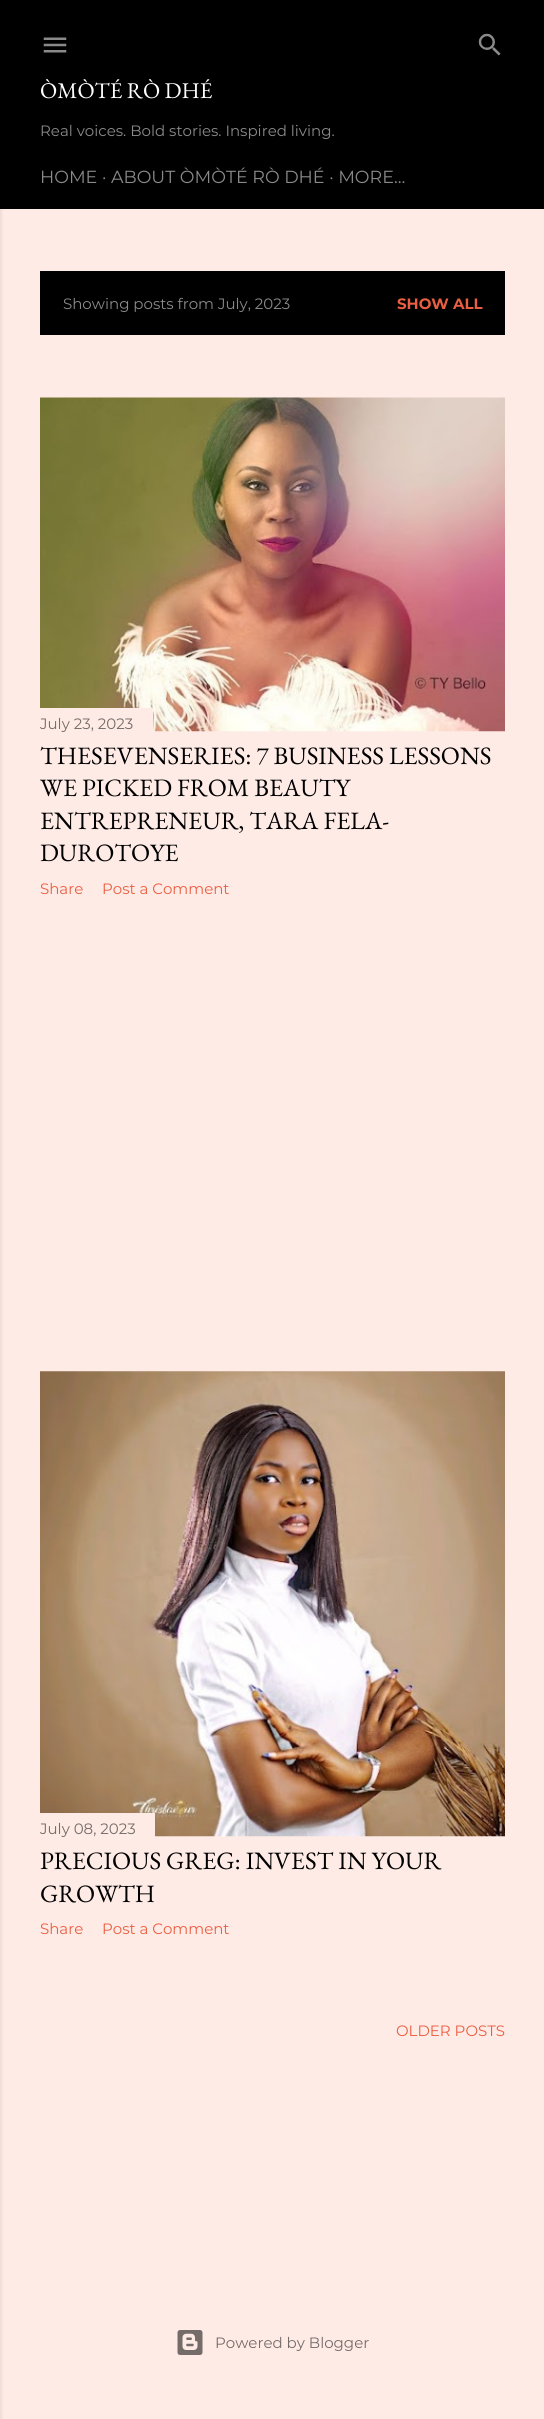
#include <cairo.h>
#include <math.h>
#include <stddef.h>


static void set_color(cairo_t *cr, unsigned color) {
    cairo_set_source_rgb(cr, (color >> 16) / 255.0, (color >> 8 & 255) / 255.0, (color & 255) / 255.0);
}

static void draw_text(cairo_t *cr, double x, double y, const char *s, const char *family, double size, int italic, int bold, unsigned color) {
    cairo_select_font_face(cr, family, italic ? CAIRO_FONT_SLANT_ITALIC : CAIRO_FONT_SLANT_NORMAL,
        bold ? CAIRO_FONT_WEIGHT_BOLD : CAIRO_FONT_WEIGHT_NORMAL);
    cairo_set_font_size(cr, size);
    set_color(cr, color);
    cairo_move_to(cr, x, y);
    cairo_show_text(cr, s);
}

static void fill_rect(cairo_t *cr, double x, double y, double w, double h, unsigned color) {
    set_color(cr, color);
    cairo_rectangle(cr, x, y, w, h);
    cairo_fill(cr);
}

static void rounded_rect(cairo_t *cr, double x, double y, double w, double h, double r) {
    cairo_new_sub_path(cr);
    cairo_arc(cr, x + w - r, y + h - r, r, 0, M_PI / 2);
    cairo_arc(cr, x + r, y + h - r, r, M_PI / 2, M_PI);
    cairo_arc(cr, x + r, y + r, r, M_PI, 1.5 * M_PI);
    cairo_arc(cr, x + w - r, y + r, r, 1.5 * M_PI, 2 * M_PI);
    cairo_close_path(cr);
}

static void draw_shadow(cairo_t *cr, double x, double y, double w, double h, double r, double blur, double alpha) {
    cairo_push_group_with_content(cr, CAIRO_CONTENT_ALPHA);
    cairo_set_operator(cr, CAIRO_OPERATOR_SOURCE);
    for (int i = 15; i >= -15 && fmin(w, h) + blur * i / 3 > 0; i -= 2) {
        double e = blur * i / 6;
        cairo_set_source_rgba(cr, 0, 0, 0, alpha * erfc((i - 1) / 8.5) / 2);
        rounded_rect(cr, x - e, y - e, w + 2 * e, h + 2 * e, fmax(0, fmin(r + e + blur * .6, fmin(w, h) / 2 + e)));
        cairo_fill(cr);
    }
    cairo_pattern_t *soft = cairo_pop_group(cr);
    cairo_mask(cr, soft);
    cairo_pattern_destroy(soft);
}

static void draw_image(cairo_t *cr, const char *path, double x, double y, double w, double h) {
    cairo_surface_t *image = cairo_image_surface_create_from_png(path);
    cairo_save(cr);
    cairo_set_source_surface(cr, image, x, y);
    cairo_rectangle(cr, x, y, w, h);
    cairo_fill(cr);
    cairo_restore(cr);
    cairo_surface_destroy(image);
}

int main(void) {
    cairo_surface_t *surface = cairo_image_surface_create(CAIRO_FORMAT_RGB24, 544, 2419);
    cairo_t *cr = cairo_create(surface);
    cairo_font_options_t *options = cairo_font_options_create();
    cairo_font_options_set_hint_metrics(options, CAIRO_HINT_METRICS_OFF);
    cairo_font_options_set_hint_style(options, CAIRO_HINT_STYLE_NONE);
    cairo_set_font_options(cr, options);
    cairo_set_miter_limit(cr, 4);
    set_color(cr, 0xFEEBE6);
    cairo_paint(cr);
    fill_rect(cr, 0, 0, 544, 209, 0x000000);
    set_color(cr, 0x000000);
    draw_shadow(cr, -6, 0, 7, 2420, 0, 2, 0.1);
    draw_image(cr, "assets/img1.png", 43, 37, 24, 16);
    draw_image(cr, "assets/img2.png", 478, 33, 23, 23);
    draw_text(cr, 40, 98, "ÒMÒTÉ RÒ DHÉ", "EB Garamond", 22.5, 0, 0, 0xFFFFFF);
    draw_text(cr, 40, 136, "Real voices. Bold stories. Inspired living.", "Montserrat", 15, 0, 0, 0x8A8A8A);
    draw_text(cr, 40, 183, "HOME · ABOUT ÒMÒTÉ RÒ DHÉ · MORE…", "Montserrat", 17.5, 0, 0, 0x8A8A8A);
    fill_rect(cr, 40, 271, 465, 64, 0x000000);
    draw_text(cr, 63, 309, "Showing posts from July, 2023", "Montserrat", 15, 0, 0, 0x8A8A8A);
    draw_text(cr, 397, 309, "SHOW ALL", "Montserrat", 15, 0, 1, 0xEA5F41);
    draw_image(cr, "assets/img3.png", 40, 397, 465, 335);
    fill_rect(cr, 40, 708, 113, 24, 0xFEEBE6);
    draw_text(cr, 40, 729, "July 23, 2023", "Montserrat", 15, 0, 0, 0x756C6A);
    draw_text(cr, 40, 764, "THESEVENSERIES: 7 BUSINESS LESSONS", "EB Garamond", 25, 0, 0, 0x000000);
    draw_text(cr, 40, 796, "WE PICKED FROM BEAUTY", "EB Garamond", 25, 0, 0, 0x000000);
    draw_text(cr, 40, 829, "ENTREPRENEUR, TARA FELA-", "EB Garamond", 25, 0, 0, 0x000000);
    draw_text(cr, 40, 861, "DUROTOYE", "EB Garamond", 25, 0, 0, 0x000000);
    draw_text(cr, 40, 894, "Share", "Montserrat", 15, 0, 0, 0xEA5F41);
    draw_text(cr, 102, 894, "Post a Comment", "Montserrat", 15, 0, 0, 0xEA5F41);
    draw_image(cr, "assets/img4.png", 40, 1371, 465, 466);
    fill_rect(cr, 40, 1813, 115, 24, 0xFEEBE6);
    draw_text(cr, 40, 1834, "July 08, 2023", "Montserrat", 15, 0, 0, 0x756C6A);
    draw_text(cr, 40, 1869, "PRECIOUS GREG: INVEST IN YOUR", "EB Garamond", 25, 0, 0, 0x000000);
    draw_text(cr, 40, 1902, "GROWTH", "EB Garamond", 25, 0, 0, 0x000000);
    draw_text(cr, 40, 1934, "Share", "Montserrat", 15, 0, 0, 0xEA5F41);
    draw_text(cr, 102, 1934, "Post a Comment", "Montserrat", 15, 0, 0, 0xEA5F41);
    draw_text(cr, 396, 2036, "OLDER POSTS", "Montserrat", 15, 0, 0, 0xEA5F41);
    draw_image(cr, "assets/img5.png", 177, 2330, 26, 25);
    draw_text(cr, 215, 2348, "Powered by Blogger", "Montserrat", 15, 0, 0, 0x756C6A);
    cairo_surface_write_to_png(surface, "output.png");
    cairo_font_options_destroy(options);
    cairo_destroy(cr);
    cairo_surface_destroy(surface);
    return 0;
}
